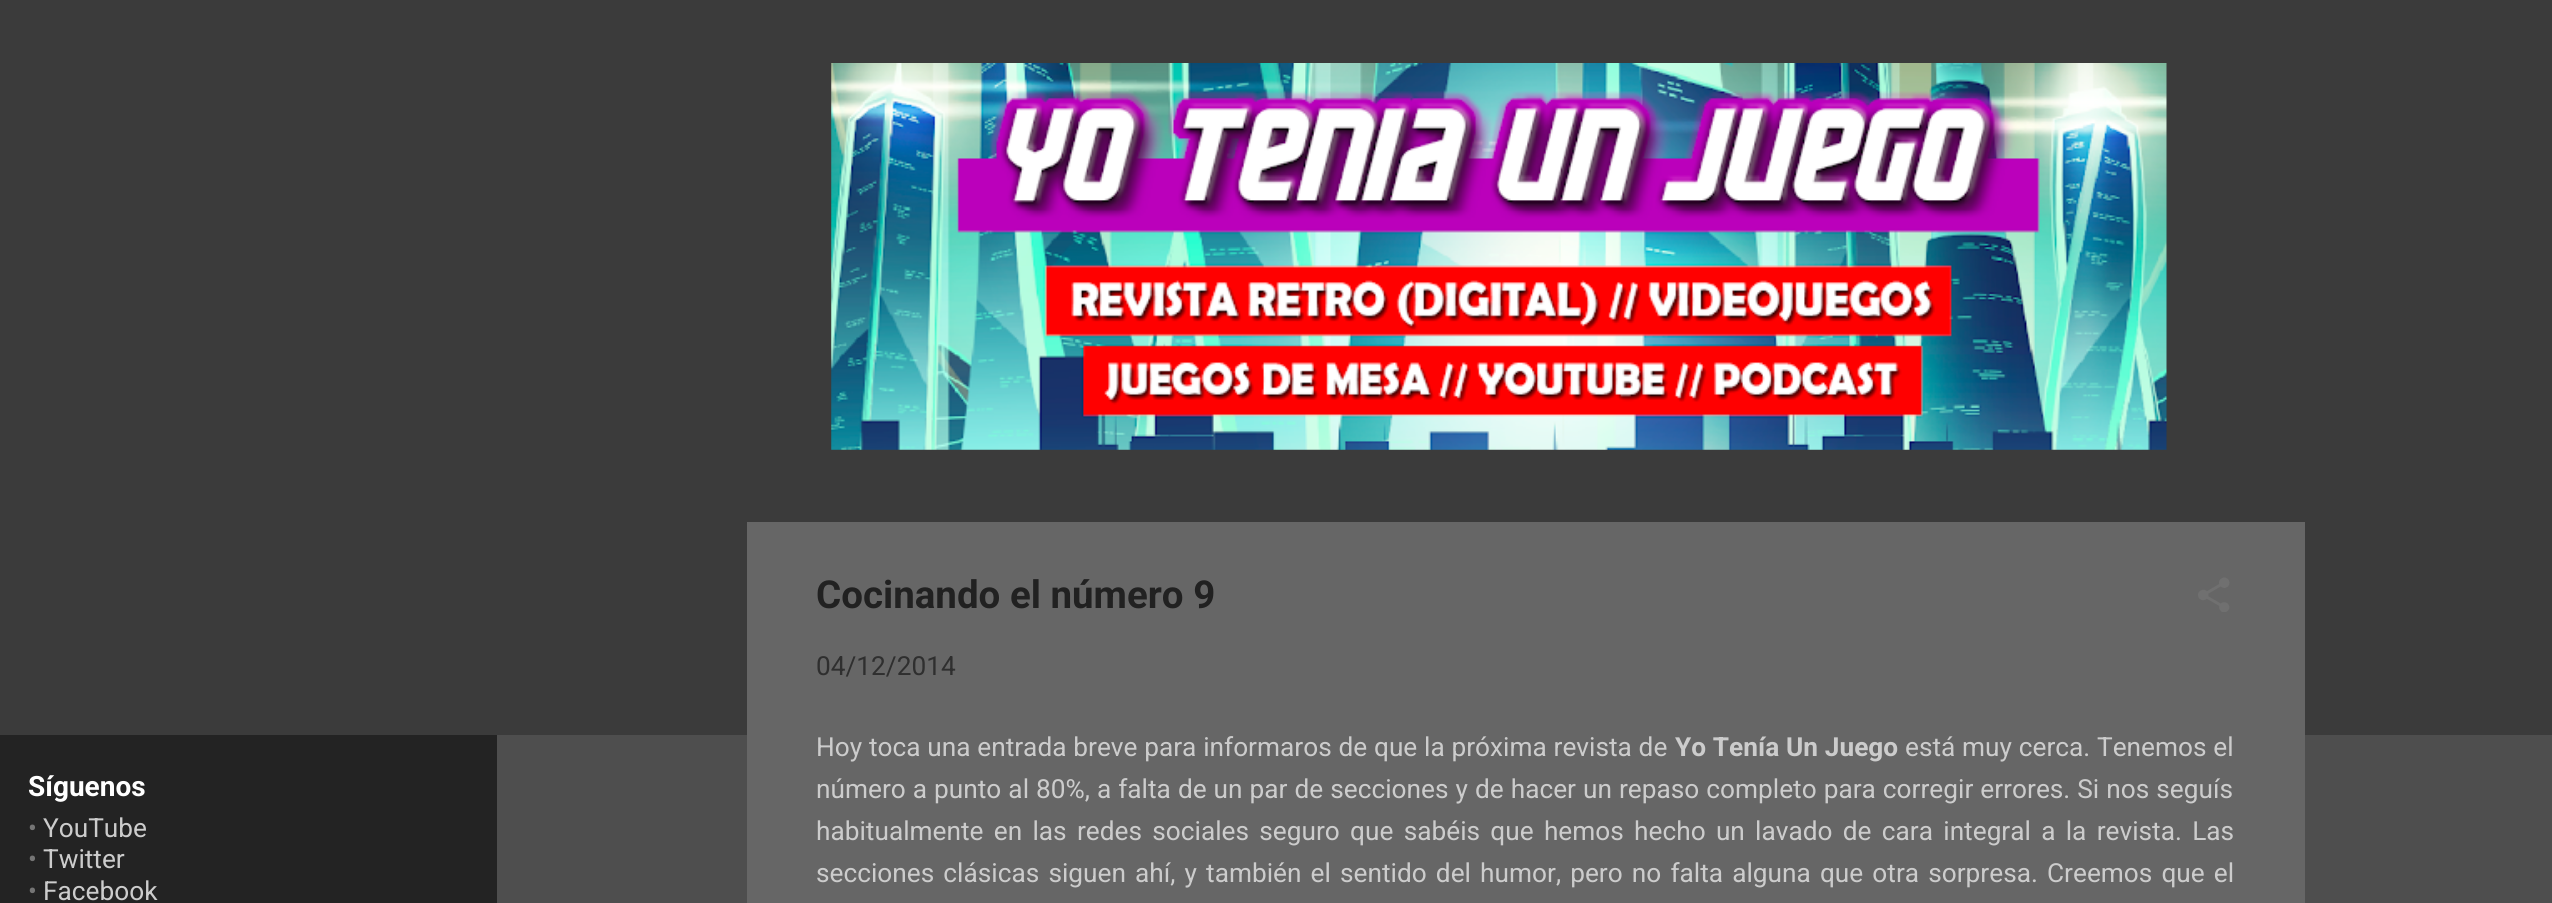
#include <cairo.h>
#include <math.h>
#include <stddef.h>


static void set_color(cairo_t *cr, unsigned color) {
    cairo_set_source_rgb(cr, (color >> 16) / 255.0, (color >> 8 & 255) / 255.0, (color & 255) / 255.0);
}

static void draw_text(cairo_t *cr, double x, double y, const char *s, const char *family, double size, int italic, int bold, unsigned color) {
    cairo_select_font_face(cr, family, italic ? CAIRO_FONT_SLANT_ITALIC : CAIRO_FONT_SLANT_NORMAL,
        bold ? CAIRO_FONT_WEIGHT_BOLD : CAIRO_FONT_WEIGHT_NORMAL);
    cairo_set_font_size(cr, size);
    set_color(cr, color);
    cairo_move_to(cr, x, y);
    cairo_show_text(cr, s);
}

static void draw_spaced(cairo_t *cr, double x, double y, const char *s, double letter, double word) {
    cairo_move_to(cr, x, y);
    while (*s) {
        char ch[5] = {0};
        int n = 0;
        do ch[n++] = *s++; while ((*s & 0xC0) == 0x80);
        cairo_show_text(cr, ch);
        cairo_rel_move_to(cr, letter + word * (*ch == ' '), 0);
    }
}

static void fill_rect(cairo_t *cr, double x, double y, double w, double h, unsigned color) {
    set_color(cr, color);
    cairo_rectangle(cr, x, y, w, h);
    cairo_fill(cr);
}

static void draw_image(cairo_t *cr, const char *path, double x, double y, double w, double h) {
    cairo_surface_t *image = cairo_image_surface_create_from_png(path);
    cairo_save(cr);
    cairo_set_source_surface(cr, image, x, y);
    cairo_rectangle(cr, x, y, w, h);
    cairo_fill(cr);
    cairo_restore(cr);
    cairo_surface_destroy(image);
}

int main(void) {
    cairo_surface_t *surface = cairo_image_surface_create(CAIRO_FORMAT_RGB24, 2552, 903);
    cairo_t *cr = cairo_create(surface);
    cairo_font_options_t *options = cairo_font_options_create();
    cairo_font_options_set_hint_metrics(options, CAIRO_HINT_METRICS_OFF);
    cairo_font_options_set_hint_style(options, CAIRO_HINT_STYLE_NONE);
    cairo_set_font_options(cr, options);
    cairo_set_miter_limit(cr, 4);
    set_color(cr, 0x4E4E4E);
    cairo_paint(cr);
    fill_rect(cr, 0, 735, 497, 168, 0x232323);
    draw_text(cr, 28, 796, "Síguenos", "Roboto", 28, 0, 1, 0xFFFFFF);
    draw_text(cr, 28, 837, "•", "Roboto", 26.25, 0, 0, 0x757575);
    draw_text(cr, 43, 837, "YouTube", "Roboto", 26.25, 0, 0, 0xCCCCCC);
    draw_text(cr, 28, 868, "•", "Roboto", 26.25, 0, 0, 0x757575);
    draw_text(cr, 43, 868, "Twitter", "Roboto", 26.25, 0, 0, 0xCCCCCC);
    draw_text(cr, 28, 900, "•", "Roboto", 26.25, 0, 0, 0x757575);
    draw_text(cr, 43, 900, "Facebook", "Roboto", 26.25, 0, 0, 0xCCCCCC);
    fill_rect(cr, 0, 0, 2552, 735, 0x3B3B3B);
    draw_image(cr, "assets/img1.png", 831, 63, 1336, 387);
    fill_rect(cr, 747, 522, 1558, 381, 0x666666);
    draw_text(cr, 816, 608, "Cocinando el número 9", "Roboto", 38.5, 0, 1, 0x212121);
    draw_image(cr, "assets/img2.png", 2198, 577, 32, 35);
    draw_text(cr, 816, 675, "04/12/2014", "Roboto", 26.25, 0, 0, 0x2F2F2F);
    set_color(cr, 0xCCCCCC);
    draw_spaced(cr, 816, 756, "Hoy toca una entrada breve para informaros de que la próxima revista de", 0, 0.25);
    cairo_select_font_face(cr, "Roboto", CAIRO_FONT_SLANT_NORMAL, CAIRO_FONT_WEIGHT_BOLD);
    draw_spaced(cr, 1675, 756, "Yo Tenía Un Juego", 0, 0.25);
    cairo_select_font_face(cr, "Roboto", CAIRO_FONT_SLANT_NORMAL, CAIRO_FONT_WEIGHT_NORMAL);
    draw_spaced(cr, 1905, 756, "está muy cerca. Tenemos el", 0, 0.25);
    draw_spaced(cr, 816, 798, "número a punto al 80%, a falta de un par de secciones y de hacer un repaso completo para corregir errores. Si nos seguís", 0, 0.5);
    draw_spaced(cr, 816, 840, "habitualmente en las redes sociales seguro que sabéis que hemos hecho un lavado de cara integral a la revista. Las", 0, 3.75);
    draw_spaced(cr, 816, 882, "secciones clásicas siguen ahí, y también el sentido del humor, pero no falta alguna que otra sorpresa. Creemos que el", 0, 2.6);
    cairo_surface_write_to_png(surface, "output.png");
    cairo_font_options_destroy(options);
    cairo_destroy(cr);
    cairo_surface_destroy(surface);
    return 0;
}
